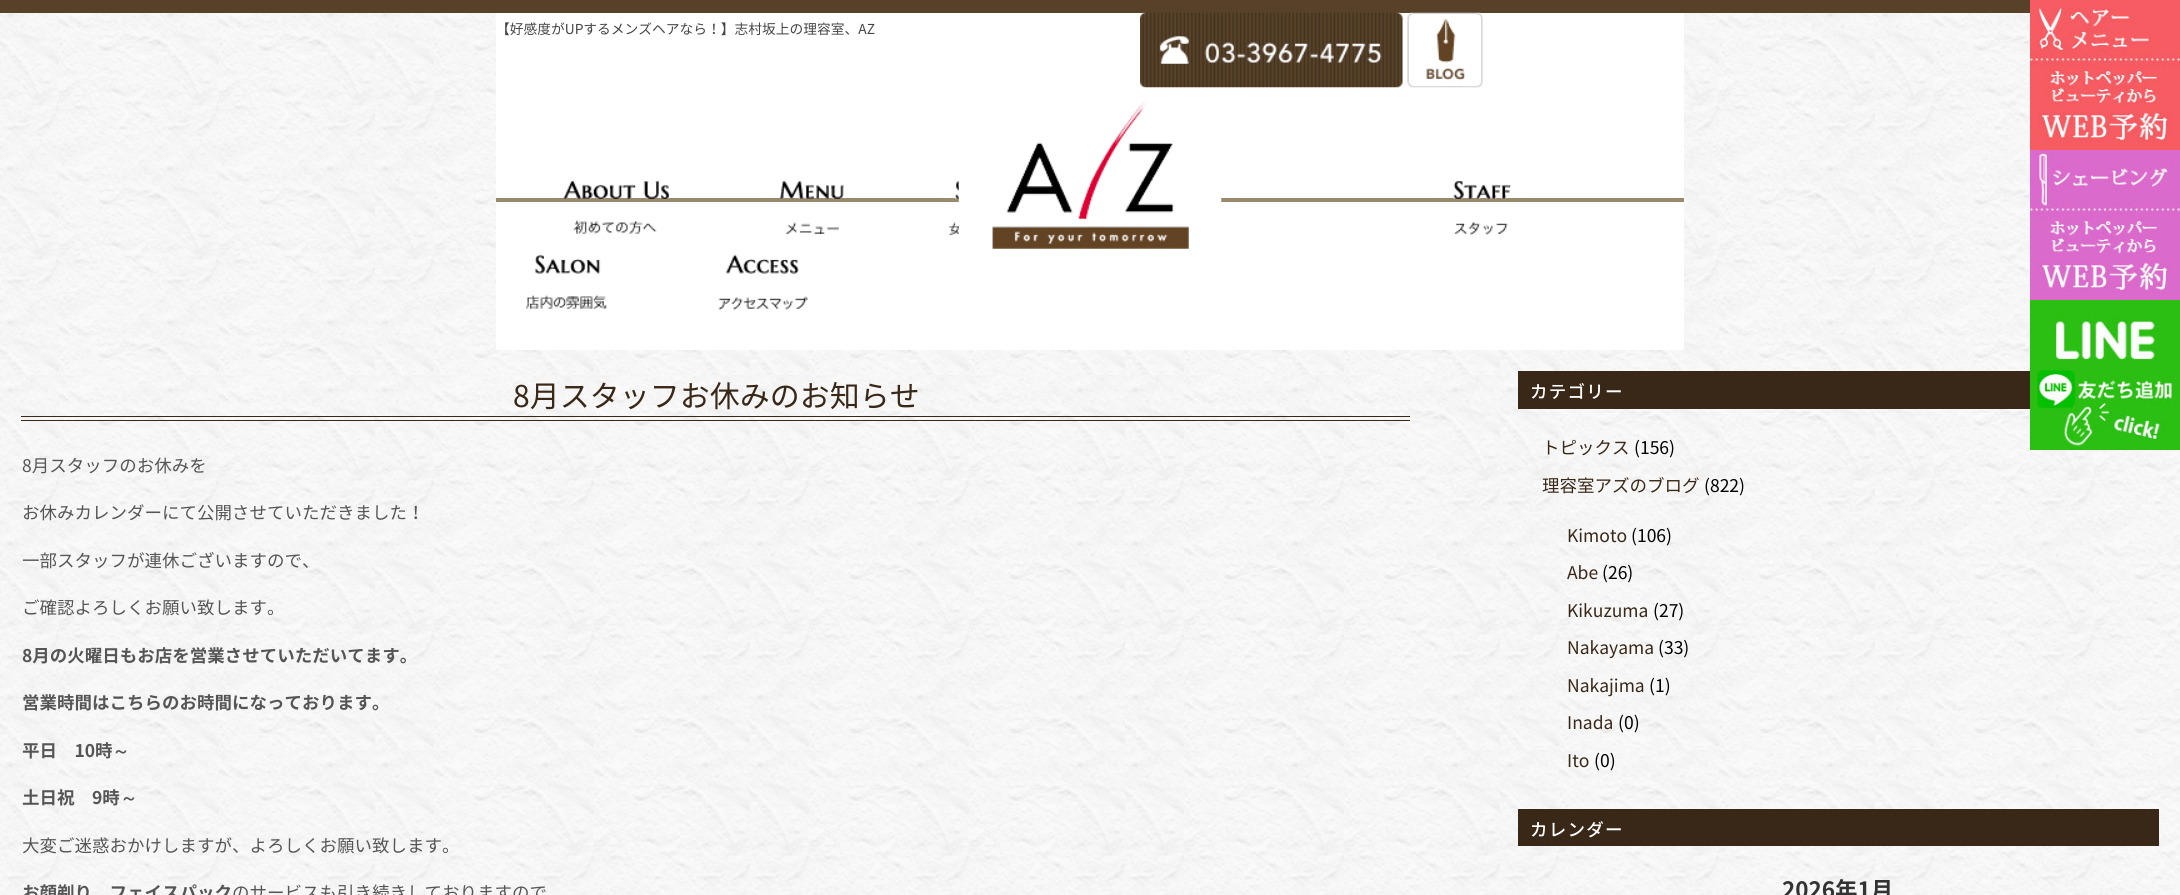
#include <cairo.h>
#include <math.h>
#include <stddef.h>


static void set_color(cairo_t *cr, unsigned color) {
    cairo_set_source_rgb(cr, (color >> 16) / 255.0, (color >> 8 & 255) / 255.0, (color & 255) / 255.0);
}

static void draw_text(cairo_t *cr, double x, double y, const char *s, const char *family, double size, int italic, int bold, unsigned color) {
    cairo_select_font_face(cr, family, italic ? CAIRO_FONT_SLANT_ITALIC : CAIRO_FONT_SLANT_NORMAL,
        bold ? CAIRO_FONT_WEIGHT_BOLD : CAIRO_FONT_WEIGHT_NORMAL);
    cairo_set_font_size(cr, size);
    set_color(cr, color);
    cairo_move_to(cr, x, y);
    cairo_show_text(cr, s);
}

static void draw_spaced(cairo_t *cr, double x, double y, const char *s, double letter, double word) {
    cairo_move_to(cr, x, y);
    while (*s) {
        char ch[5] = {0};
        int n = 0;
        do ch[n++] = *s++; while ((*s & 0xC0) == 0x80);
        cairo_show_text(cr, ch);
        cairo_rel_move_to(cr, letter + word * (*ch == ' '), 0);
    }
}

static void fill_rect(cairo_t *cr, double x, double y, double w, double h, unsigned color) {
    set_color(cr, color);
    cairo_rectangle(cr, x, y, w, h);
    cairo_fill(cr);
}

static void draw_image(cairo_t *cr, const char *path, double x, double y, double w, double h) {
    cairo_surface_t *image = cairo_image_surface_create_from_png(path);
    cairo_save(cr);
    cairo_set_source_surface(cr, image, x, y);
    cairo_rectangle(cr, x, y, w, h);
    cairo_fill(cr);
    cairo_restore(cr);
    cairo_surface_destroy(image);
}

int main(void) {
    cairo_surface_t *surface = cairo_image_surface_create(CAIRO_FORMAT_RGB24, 2180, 895);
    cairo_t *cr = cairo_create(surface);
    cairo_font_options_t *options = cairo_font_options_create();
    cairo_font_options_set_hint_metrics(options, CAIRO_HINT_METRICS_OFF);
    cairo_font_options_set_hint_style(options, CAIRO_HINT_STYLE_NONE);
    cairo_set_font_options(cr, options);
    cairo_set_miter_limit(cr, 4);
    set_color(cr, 0xFFFFFF);
    cairo_paint(cr);
    draw_image(cr, "assets/img1.png", 0, 13, 2180, 882);
    fill_rect(cr, 0, 0, 2030, 13, 0x574129);
    fill_rect(cr, 496, 13, 1188, 337, 0xFFFFFF);
    draw_text(cr, 496, 34, "【好感度がUPするメンズヘアなら！】志村坂上の理容室、AZ", "Noto Sans JP", 13.75, 0, 0, 0x444444);
    draw_image(cr, "assets/img2.png", 1140, 12, 263, 76);
    draw_image(cr, "assets/img3.png", 1407, 12, 76, 76);
    fill_rect(cr, 496, 198, 1188, 4, 0x9B896E);
    draw_image(cr, "assets/img7.png", 948, 181, 11, 55);
    draw_image(cr, "assets/img4.png", 958, 101, 264, 148);
    draw_image(cr, "assets/img5.png", 563, 181, 106, 53);
    draw_image(cr, "assets/img6.png", 779, 181, 65, 54);
    draw_image(cr, "assets/img8.png", 1453, 181, 59, 55);
    draw_image(cr, "assets/img9.png", 526, 254, 81, 55);
    draw_image(cr, "assets/img10.png", 718, 254, 90, 57);
    draw_image(cr, "assets/img11.png", 2030, 0, 150, 150);
    draw_image(cr, "assets/img12.png", 2030, 150, 150, 150);
    draw_image(cr, "assets/img13.png", 2030, 300, 150, 150);
    fill_rect(cr, 21, 416, 1389, 1, 0x392817);
    fill_rect(cr, 21, 420, 1389, 1, 0x392817);
    draw_text(cr, 513, 407, "8月スタッフお休みのお知らせ", "Noto Sans JP", 30, 0, 0, 0x392817);
    draw_text(cr, 22, 472, "8月スタッフのお休みを", "Noto Sans JP", 17.5, 0, 0, 0x555555);
    draw_text(cr, 22, 519, "お休みカレンダーにて公開させていただきました！", "Noto Sans JP", 17.5, 0, 0, 0x555555);
    draw_text(cr, 22, 567, "一部スタッフが連休ございますので、", "Noto Sans JP", 17.5, 0, 0, 0x555555);
    draw_text(cr, 22, 614, "ご確認よろしくお願い致します。", "Noto Sans JP", 17.5, 0, 0, 0x555555);
    draw_text(cr, 22, 662, "8月の火曜日もお店を営業させていただいてます。", "Noto Sans JP", 17.5, 0, 1, 0x555555);
    draw_text(cr, 22, 709, "営業時間はこちらのお時間になっております。", "Noto Sans JP", 17.5, 0, 1, 0x555555);
    draw_text(cr, 22, 757, "平日　10時", "Noto Sans JP", 17.5, 0, 1, 0x555555);
    draw_text(cr, 112, 757, "～", "WenQuanYi Zen Hei", 17.5, 0, 1, 0x555555);
    draw_text(cr, 22, 804, "土日祝　9時", "Noto Sans JP", 17.5, 0, 1, 0x555555);
    draw_text(cr, 120, 804, "～", "WenQuanYi Zen Hei", 17.5, 0, 1, 0x555555);
    draw_text(cr, 22, 852, "大変ご迷惑おかけしますが、よろしくお願い致します。", "Noto Sans JP", 17.5, 0, 0, 0x555555);
    draw_text(cr, 22, 899, "お顔剃り、フェイスパック", "Noto Sans JP", 17.5, 0, 1, 0x555555);
    draw_text(cr, 232, 899, "のサービスも引き続きしておりますので", "Noto Sans JP", 17.5, 0, 0, 0x555555);
    fill_rect(cr, 1518, 371, 512, 38, 0x392817);
    cairo_select_font_face(cr, "Noto Sans JP Medium", CAIRO_FONT_SLANT_NORMAL, CAIRO_FONT_WEIGHT_NORMAL);
    set_color(cr, 0xFFFFFF);
    draw_spaced(cr, 1530, 398, "カテゴリー", 1.25, 0);
    draw_text(cr, 1542, 454, "トピックス", "Noto Sans JP", 17.5, 0, 0, 0x392817);
    draw_text(cr, 1634, 454, "(156)", "Noto Sans JP", 17.5, 0, 0, 0x000000);
    draw_text(cr, 1542, 492, "理容室アズのブログ", "Noto Sans JP", 17.5, 0, 0, 0x392817);
    draw_text(cr, 1704, 492, "(822)", "Noto Sans JP", 17.5, 0, 0, 0x000000);
    draw_text(cr, 1567, 542, "Kimoto", "Noto Sans JP", 17.5, 0, 0, 0x392817);
    draw_text(cr, 1631, 542, "(106)", "Noto Sans JP", 17.5, 0, 0, 0x000000);
    draw_text(cr, 1567, 579, "Abe", "Noto Sans JP", 17.5, 0, 0, 0x392817);
    draw_text(cr, 1602, 579, "(26)", "Noto Sans JP", 17.5, 0, 0, 0x000000);
    draw_text(cr, 1567, 617, "Kikuzuma", "Noto Sans JP", 17.5, 0, 0, 0x392817);
    draw_text(cr, 1653, 617, "(27)", "Noto Sans JP", 17.5, 0, 0, 0x000000);
    draw_text(cr, 1567, 654, "Nakayama", "Noto Sans JP", 17.5, 0, 0, 0x392817);
    draw_text(cr, 1658, 654, "(33)", "Noto Sans JP", 17.5, 0, 0, 0x000000);
    draw_text(cr, 1567, 692, "Nakajima", "Noto Sans JP", 17.5, 0, 0, 0x392817);
    draw_text(cr, 1649, 692, "(1)", "Noto Sans JP", 17.5, 0, 0, 0x000000);
    draw_text(cr, 1567, 729, "Inada", "Noto Sans JP", 17.5, 0, 0, 0x392817);
    draw_text(cr, 1618, 729, "(0)", "Noto Sans JP", 17.5, 0, 0, 0x000000);
    draw_text(cr, 1567, 767, "Ito", "Noto Sans JP", 17.5, 0, 0, 0x392817);
    draw_text(cr, 1594, 767, "(0)", "Noto Sans JP", 17.5, 0, 0, 0x000000);
    fill_rect(cr, 1518, 809, 641, 37, 0x392817);
    cairo_select_font_face(cr, "Noto Sans JP Medium", CAIRO_FONT_SLANT_NORMAL, CAIRO_FONT_WEIGHT_NORMAL);
    set_color(cr, 0xFFFFFF);
    draw_spaced(cr, 1530, 836, "カレンダー", 1.25, 0);
    draw_text(cr, 1782, 898, "2026年1月", "Noto Sans JP", 22.5, 0, 1, 0x333333);
    cairo_surface_write_to_png(surface, "output.png");
    cairo_font_options_destroy(options);
    cairo_destroy(cr);
    cairo_surface_destroy(surface);
    return 0;
}
